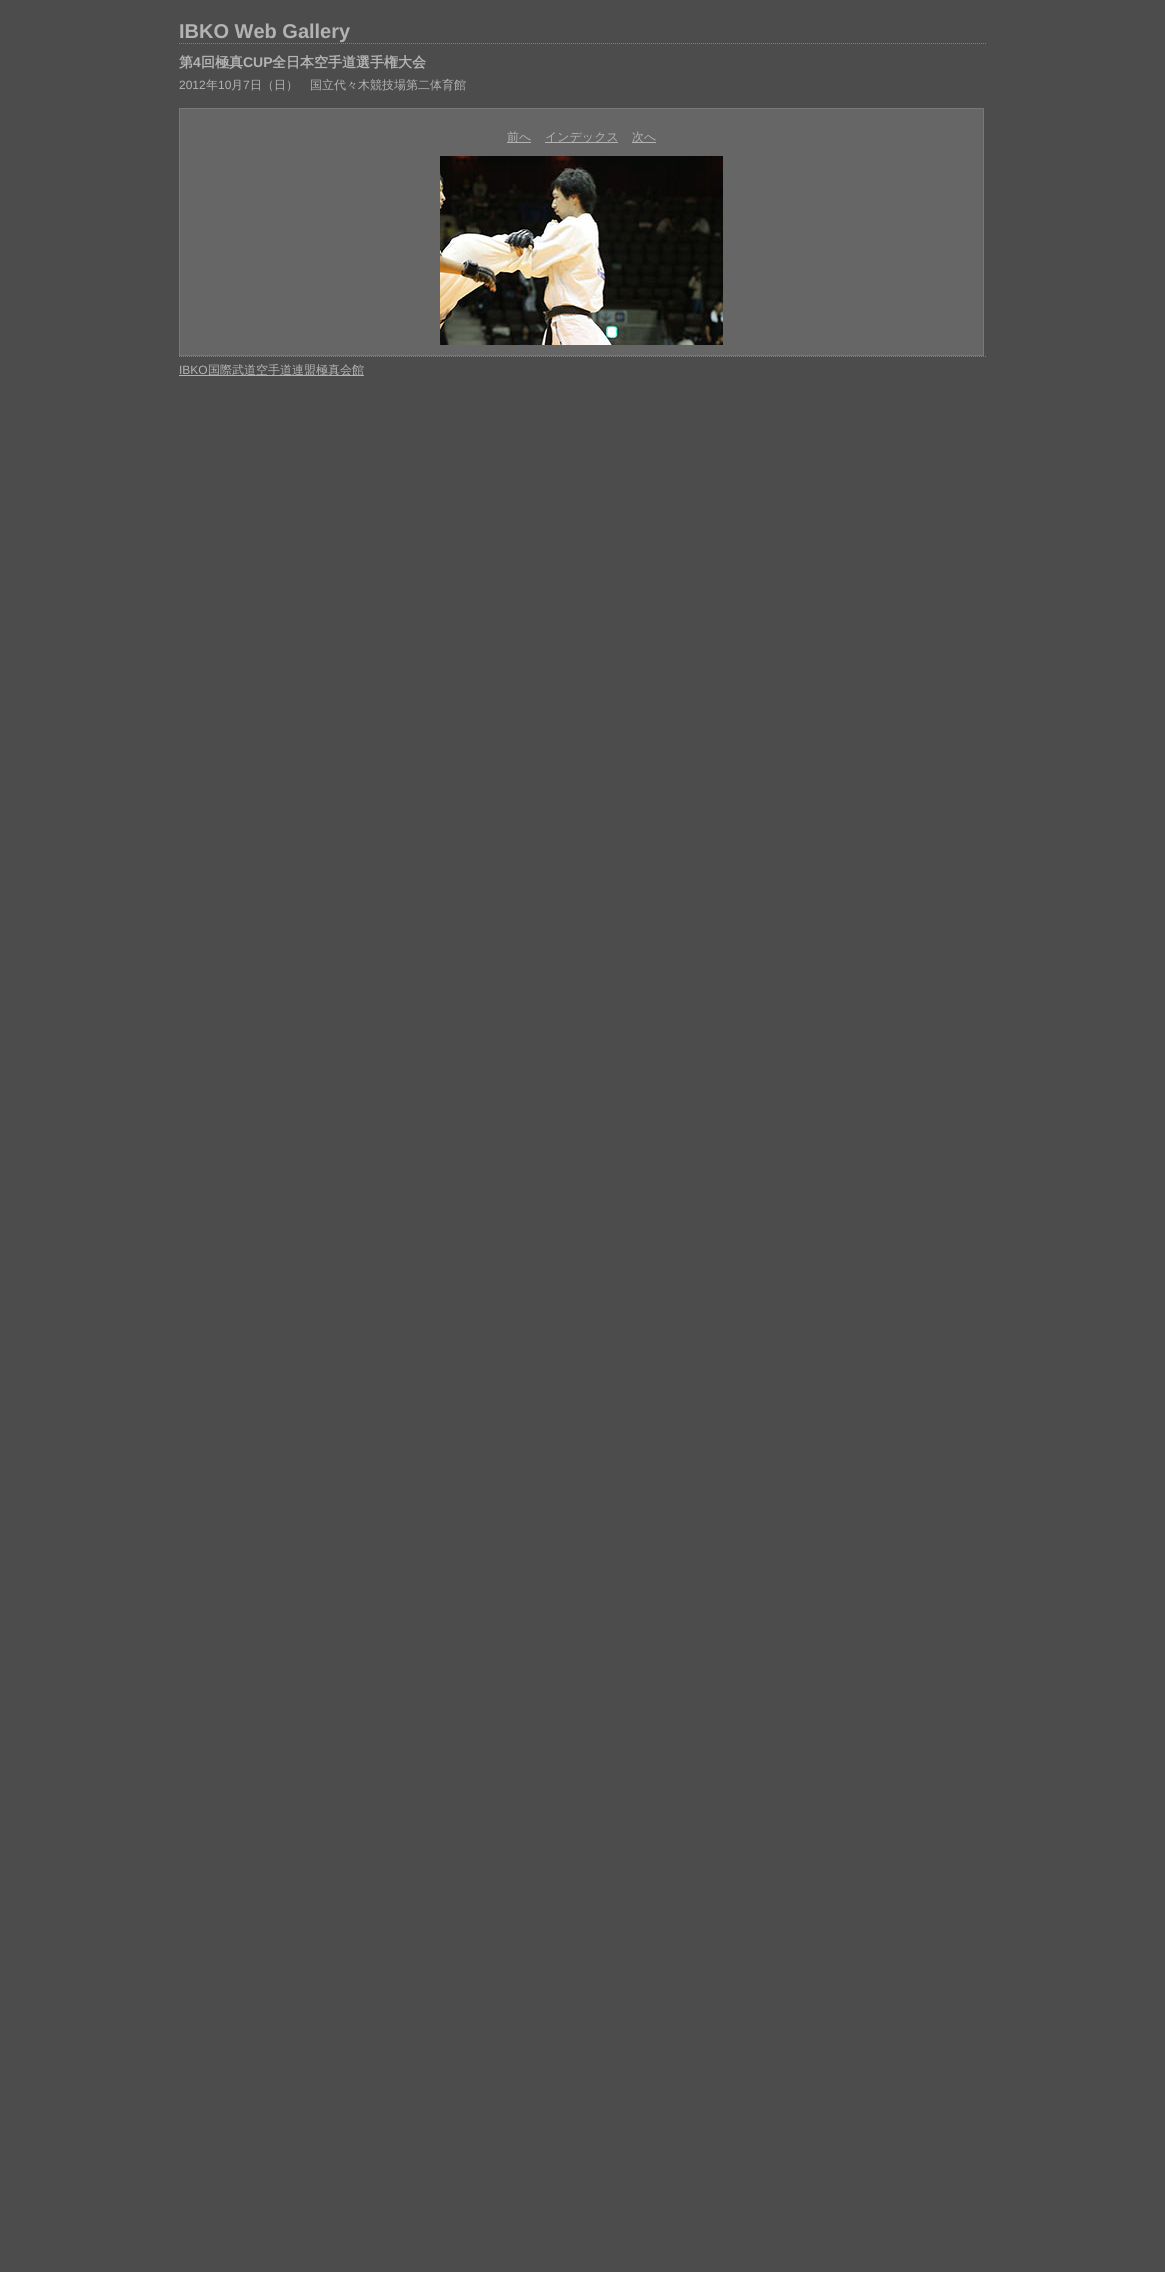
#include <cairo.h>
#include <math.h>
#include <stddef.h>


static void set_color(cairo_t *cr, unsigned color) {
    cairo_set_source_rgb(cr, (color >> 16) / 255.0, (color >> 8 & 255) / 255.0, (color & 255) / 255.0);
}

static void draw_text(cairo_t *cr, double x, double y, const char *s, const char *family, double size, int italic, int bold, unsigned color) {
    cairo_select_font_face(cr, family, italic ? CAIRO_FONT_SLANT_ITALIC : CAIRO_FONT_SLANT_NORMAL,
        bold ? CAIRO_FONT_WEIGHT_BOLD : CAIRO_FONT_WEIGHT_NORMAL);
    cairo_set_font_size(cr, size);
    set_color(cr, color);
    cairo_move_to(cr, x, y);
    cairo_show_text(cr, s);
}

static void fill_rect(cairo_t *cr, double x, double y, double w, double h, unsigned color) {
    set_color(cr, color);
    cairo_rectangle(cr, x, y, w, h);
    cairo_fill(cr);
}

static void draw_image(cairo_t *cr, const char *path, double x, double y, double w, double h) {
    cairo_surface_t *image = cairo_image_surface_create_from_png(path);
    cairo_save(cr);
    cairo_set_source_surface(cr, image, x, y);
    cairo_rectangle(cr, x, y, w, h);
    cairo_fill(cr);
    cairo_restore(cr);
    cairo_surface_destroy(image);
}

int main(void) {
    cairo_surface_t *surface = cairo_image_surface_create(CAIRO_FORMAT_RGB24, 1165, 2272);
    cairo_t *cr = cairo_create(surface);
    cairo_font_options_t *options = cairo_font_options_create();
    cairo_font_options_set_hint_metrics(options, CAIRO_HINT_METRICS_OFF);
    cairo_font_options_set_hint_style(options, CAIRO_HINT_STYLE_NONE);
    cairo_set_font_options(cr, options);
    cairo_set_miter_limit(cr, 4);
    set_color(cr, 0x4C4C4C);
    cairo_paint(cr);
    cairo_new_path(cr);
    cairo_move_to(cr, 179, 43.5);
    cairo_line_to(cr, 986, 43.5);
    set_color(cr, 0x7F7F7F);
    cairo_set_line_width(cr, 1);
    cairo_set_dash(cr, (double[]){1, 1}, 2, 0);
    cairo_stroke(cr);
    draw_text(cr, 179, 38, "IBKO Web Gallery", "Liberation Sans", 20, 0, 1, 0xB3B3B3);
    draw_text(cr, 179, 67, "第", "WenQuanYi Zen Hei", 14, 0, 1, 0xB3B3B3);
    draw_text(cr, 193, 67, "4", "Liberation Sans", 14, 0, 1, 0xB3B3B3);
    draw_text(cr, 201, 67, "回極真", "WenQuanYi Zen Hei", 14, 0, 1, 0xB3B3B3);
    draw_text(cr, 243, 67, "CUP", "Liberation Sans", 14, 0, 1, 0xB3B3B3);
    draw_text(cr, 272, 67, "全日本空手道選手権大会", "WenQuanYi Zen Hei", 14, 0, 1, 0xB3B3B3);
    draw_text(cr, 179, 89, "2012", "Liberation Sans", 12, 0, 0, 0xB3B3B3);
    draw_text(cr, 206, 89, "年", "WenQuanYi Zen Hei Medium", 12, 0, 0, 0xB3B3B3);
    draw_text(cr, 218, 89, "10", "Liberation Sans", 12, 0, 0, 0xB3B3B3);
    draw_text(cr, 231, 89, "月", "WenQuanYi Zen Hei Medium", 12, 0, 0, 0xB3B3B3);
    draw_text(cr, 243, 89, "7", "Liberation Sans", 12, 0, 0, 0xB3B3B3);
    draw_text(cr, 250, 89, "日（日）　国立代々木競技場第二体育館", "WenQuanYi Zen Hei Medium", 12, 0, 0, 0xB3B3B3);
    set_color(cr, 0x666666);
    cairo_rectangle(cr, 179.5, 108.5, 804, 247);
    cairo_fill_preserve(cr);
    set_color(cr, 0x787878);
    cairo_set_dash(cr, NULL, 0, 0);
    cairo_stroke(cr);
    fill_rect(cr, 507, 142, 24, 1, 0xB3B3B3);
    draw_text(cr, 507, 141, "前へ", "WenQuanYi Zen Hei Medium", 12, 0, 0, 0xB3B3B3);
    fill_rect(cr, 545, 142, 73, 1, 0xB3B3B3);
    draw_text(cr, 545, 141, "インデックス", "WenQuanYi Zen Hei Medium", 12, 0, 0, 0xB3B3B3);
    fill_rect(cr, 632, 142, 24, 1, 0xB3B3B3);
    draw_text(cr, 632, 141, "次へ", "WenQuanYi Zen Hei Medium", 12, 0, 0, 0xB3B3B3);
    draw_image(cr, "assets/img1.png", 440, 156, 283, 189);
    cairo_new_path(cr);
    cairo_move_to(cr, 179, 356.5);
    cairo_line_to(cr, 986, 356.5);
    set_color(cr, 0x7F7F7F);
    cairo_set_dash(cr, (double[]){1, 1}, 2, 0);
    cairo_stroke(cr);
    draw_text(cr, 179, 374, "IBKO", "Liberation Sans", 12, 0, 0, 0xB3B3B3);
    fill_rect(cr, 179, 375, 185, 1, 0xB3B3B3);
    draw_text(cr, 208, 374, "国際武道空手道連盟極真会館", "WenQuanYi Zen Hei Medium", 12, 0, 0, 0xB3B3B3);
    cairo_surface_write_to_png(surface, "output.png");
    cairo_font_options_destroy(options);
    cairo_destroy(cr);
    cairo_surface_destroy(surface);
    return 0;
}
